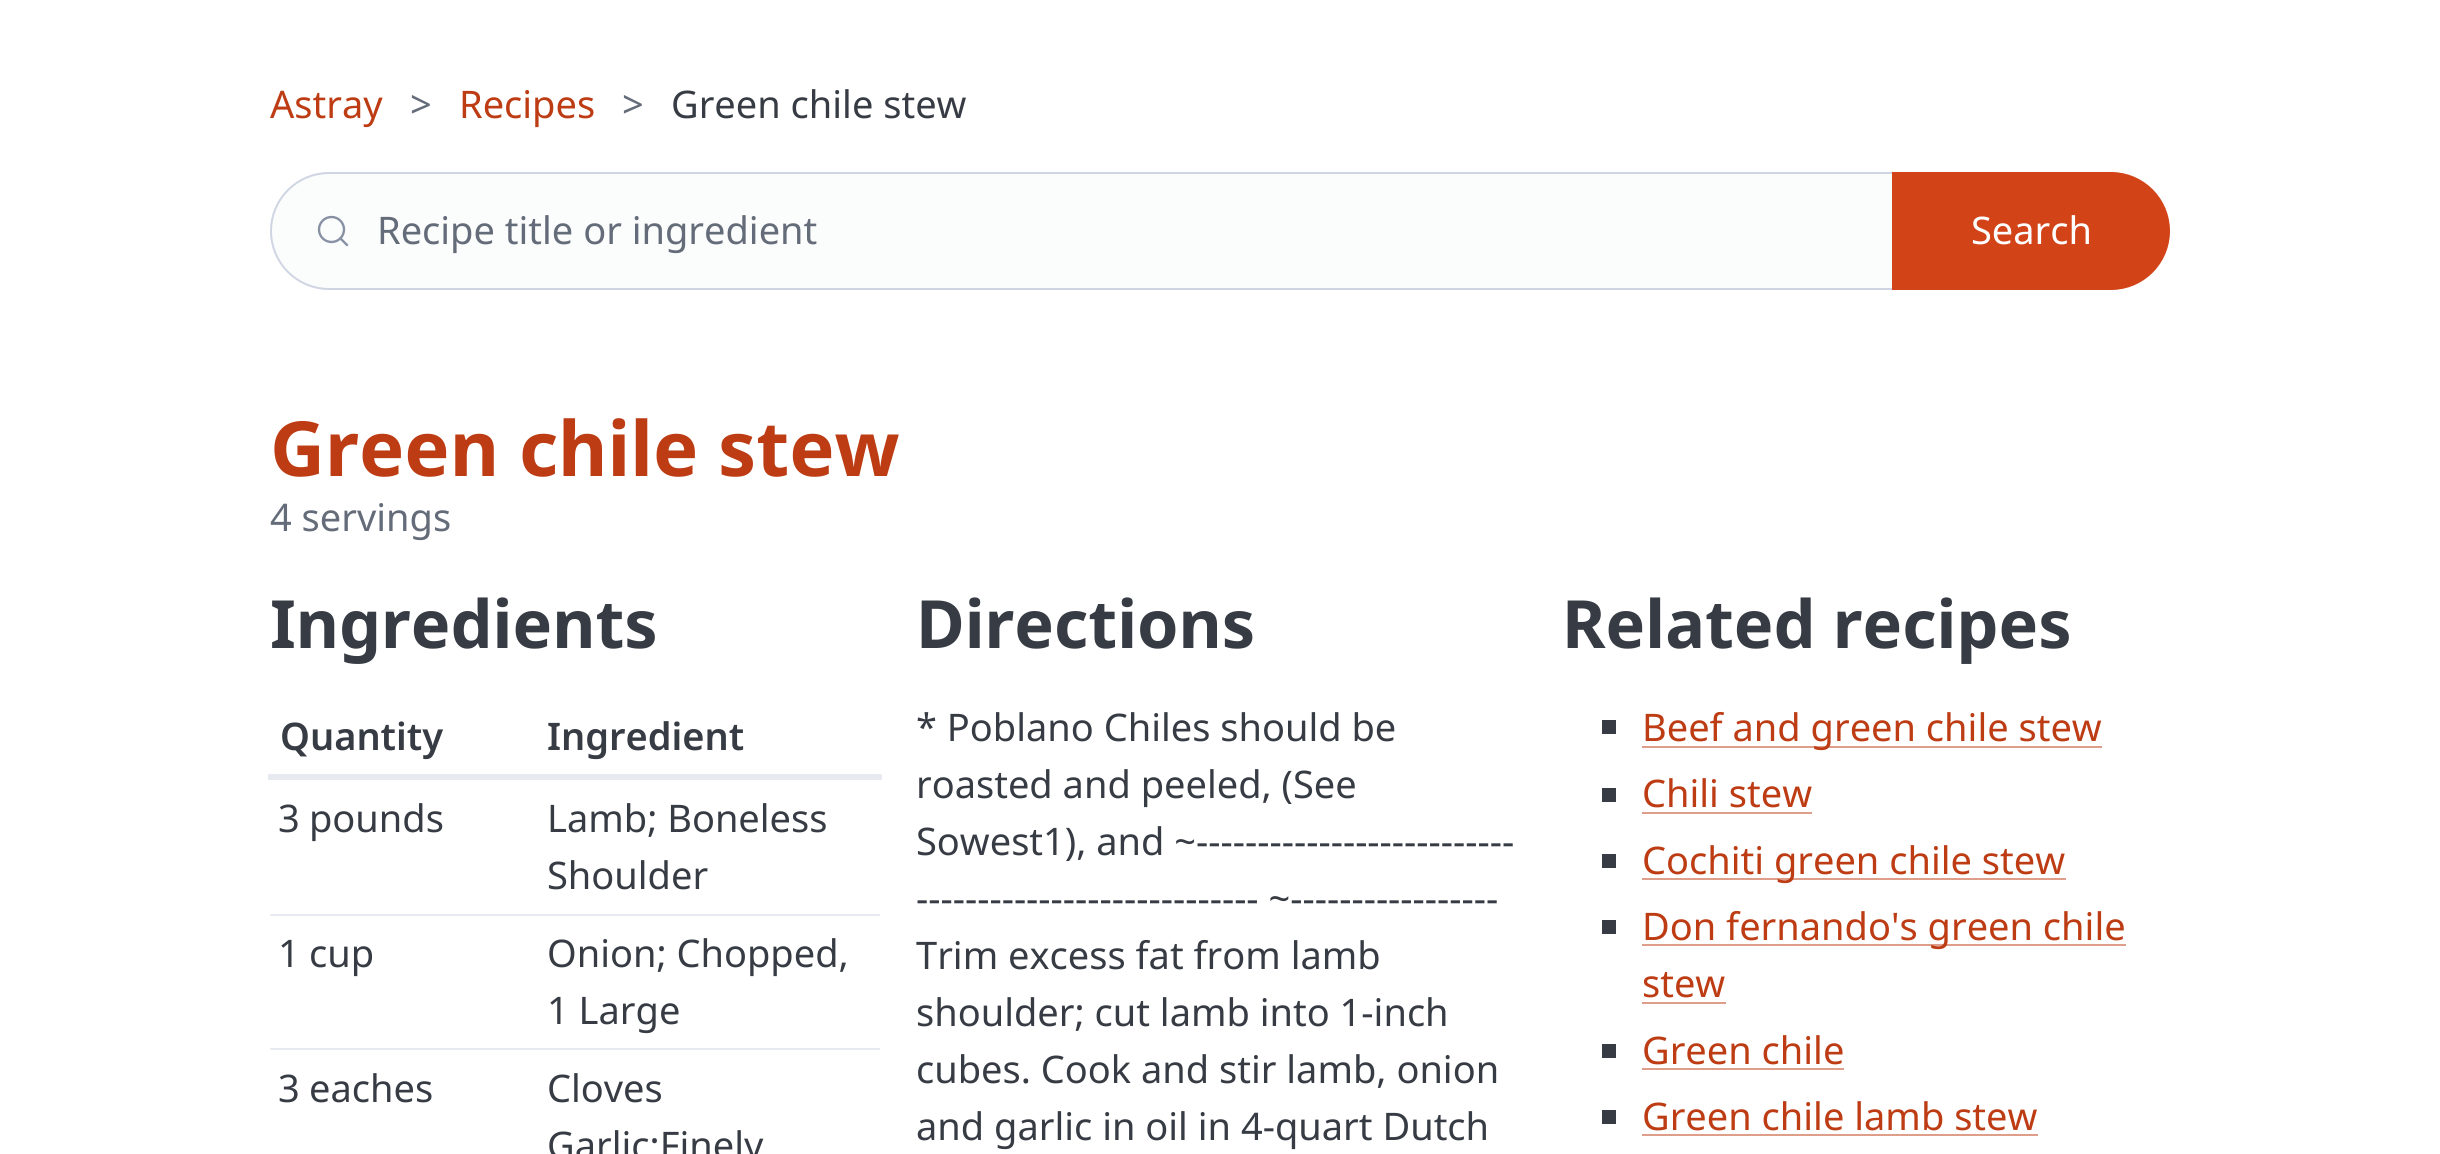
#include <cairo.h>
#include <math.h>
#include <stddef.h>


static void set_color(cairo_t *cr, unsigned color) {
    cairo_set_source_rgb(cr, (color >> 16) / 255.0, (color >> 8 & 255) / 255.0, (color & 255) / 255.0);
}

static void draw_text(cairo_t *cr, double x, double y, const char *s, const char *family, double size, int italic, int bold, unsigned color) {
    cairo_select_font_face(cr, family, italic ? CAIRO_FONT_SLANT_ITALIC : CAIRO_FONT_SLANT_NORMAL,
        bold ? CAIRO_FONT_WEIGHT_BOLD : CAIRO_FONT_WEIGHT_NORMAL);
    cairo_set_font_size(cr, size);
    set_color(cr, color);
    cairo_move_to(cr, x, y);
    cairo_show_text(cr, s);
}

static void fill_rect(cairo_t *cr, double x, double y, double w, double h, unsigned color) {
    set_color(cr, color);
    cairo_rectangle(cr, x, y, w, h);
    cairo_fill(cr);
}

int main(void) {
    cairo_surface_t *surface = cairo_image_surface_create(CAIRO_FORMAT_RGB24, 2440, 1154);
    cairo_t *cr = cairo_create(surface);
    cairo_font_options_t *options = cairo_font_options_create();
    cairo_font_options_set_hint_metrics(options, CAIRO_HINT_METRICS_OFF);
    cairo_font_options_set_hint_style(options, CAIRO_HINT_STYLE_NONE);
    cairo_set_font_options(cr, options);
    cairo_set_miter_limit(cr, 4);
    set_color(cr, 0xFFFFFF);
    cairo_paint(cr);
    draw_text(cr, 270, 118, "Astray", "Noto Sans", 38, 0, 0, 0xBD3C13);
    draw_text(cr, 410, 118, ">", "Noto Sans", 38, 0, 0, 0x646B79);
    draw_text(cr, 459, 118, "Recipes", "Noto Sans", 38, 0, 0, 0xBD3C13);
    draw_text(cr, 622, 118, ">", "Noto Sans", 38, 0, 0, 0x646B79);
    draw_text(cr, 671, 118, "Green chile stew", "Noto Sans", 38, 0, 0, 0x373C44);
    set_color(cr, 0xFBFCFC);
    cairo_new_path(cr);
    cairo_move_to(cr, 329, 172);
    cairo_line_to(cr, 1896, 172);
    cairo_line_to(cr, 1896, 290);
    cairo_line_to(cr, 329, 290);
    cairo_curve_to(cr, 296.5, 290, 270, 263.5, 270, 231);
    cairo_curve_to(cr, 270, 198.5, 296.5, 172, 329, 172);
    cairo_close_path(cr);
    cairo_fill(cr);
    cairo_arc(cr, 331.5, 229.5, 12.5, 0, 2 * M_PI);
    set_color(cr, 0x8891A4);
    cairo_set_line_width(cr, 2.4);
    cairo_stroke(cr);
    cairo_new_path(cr);
    cairo_move_to(cr, 347, 245);
    cairo_line_to(cr, 340.5, 238.5);
    cairo_set_line_cap(cr, CAIRO_LINE_CAP_ROUND);
    cairo_set_line_join(cr, CAIRO_LINE_JOIN_ROUND);
    cairo_stroke(cr);
    cairo_new_path(cr);
    cairo_move_to(cr, 329, 173);
    cairo_line_to(cr, 1895, 173);
    cairo_line_to(cr, 1895, 289);
    cairo_line_to(cr, 329, 289);
    cairo_curve_to(cr, 297, 289, 271, 263, 271, 231);
    cairo_curve_to(cr, 271, 199, 297, 173, 329, 173);
    cairo_close_path(cr);
    set_color(cr, 0xCFD5E2);
    cairo_set_line_width(cr, 2);
    cairo_set_line_cap(cr, CAIRO_LINE_CAP_BUTT);
    cairo_set_line_join(cr, CAIRO_LINE_JOIN_MITER);
    cairo_stroke(cr);
    draw_text(cr, 377, 244, "Recipe title or ingredient", "Noto Sans", 38, 0, 0, 0x646B79);
    set_color(cr, 0xD24317);
    cairo_new_path(cr);
    cairo_move_to(cr, 1893, 173);
    cairo_line_to(cr, 2111, 173);
    cairo_curve_to(cr, 2143, 173, 2169, 199, 2169, 231);
    cairo_curve_to(cr, 2169, 263, 2143, 289, 2111, 289);
    cairo_line_to(cr, 1893, 289);
    cairo_close_path(cr);
    cairo_fill_preserve(cr);
    cairo_stroke(cr);
    draw_text(cr, 1971, 244, "Search", "Noto Sans", 38, 0, 0, 0xFFFFFF);
    draw_text(cr, 270, 476, "Green chile stew", "Noto Sans", 76, 0, 1, 0xBD3C13);
    draw_text(cr, 270, 531, "4 servings", "Noto Sans", 38, 0, 0, 0x646B79);
    draw_text(cr, 270, 648, "Ingredients", "Noto Sans", 66.5, 0, 1, 0x373C44);
    draw_text(cr, 280, 750, "Quantity", "Noto Sans SemiBold", 38, 0, 0, 0x373C44);
    fill_rect(cr, 268, 774, 614, 6, 0xE7EAF0);
    draw_text(cr, 547, 750, "Ingredient", "Noto Sans SemiBold", 38, 0, 0, 0x373C44);
    draw_text(cr, 278, 832, "3", "Noto Sans", 38, 0, 0, 0x373C44);
    draw_text(cr, 309, 832, "pounds", "Noto Sans", 38, 0, 0, 0x373C44);
    fill_rect(cr, 270, 914, 610, 2, 0xE7EAF0);
    draw_text(cr, 547, 832, "Lamb; Boneless", "Noto Sans", 38, 0, 0, 0x373C44);
    draw_text(cr, 547, 889, "Shoulder", "Noto Sans", 38, 0, 0, 0x373C44);
    draw_text(cr, 278, 967, "1", "Noto Sans", 38, 0, 0, 0x373C44);
    draw_text(cr, 309, 967, "cup", "Noto Sans", 38, 0, 0, 0x373C44);
    fill_rect(cr, 270, 1048, 610, 2, 0xE7EAF0);
    draw_text(cr, 547, 967, "Onion; Chopped,", "Noto Sans", 38, 0, 0, 0x373C44);
    draw_text(cr, 547, 1024, "1 Large", "Noto Sans", 38, 0, 0, 0x373C44);
    draw_text(cr, 278, 1102, "3", "Noto Sans", 38, 0, 0, 0x373C44);
    draw_text(cr, 309, 1102, "eaches", "Noto Sans", 38, 0, 0, 0x373C44);
    draw_text(cr, 547, 1102, "Cloves", "Noto Sans", 38, 0, 0, 0x373C44);
    draw_text(cr, 547, 1159, "Garlic;Finely", "Noto Sans", 38, 0, 0, 0x373C44);
    draw_text(cr, 916, 648, "Directions", "Noto Sans", 66.5, 0, 1, 0x373C44);
    draw_text(cr, 916, 741, "* Poblano Chiles should be", "Noto Sans", 38, 0, 0, 0x373C44);
    draw_text(cr, 916, 798, "roasted and peeled, (See", "Noto Sans", 38, 0, 0, 0x373C44);
    draw_text(cr, 916, 855, "Sowest1), and ~--------------------------", "Noto Sans", 38, 0, 0, 0x373C44);
    draw_text(cr, 916, 912, "---------------------------- ~-----------------", "Noto Sans", 38, 0, 0, 0x373C44);
    draw_text(cr, 916, 969, "Trim excess fat from lamb", "Noto Sans", 38, 0, 0, 0x373C44);
    draw_text(cr, 916, 1026, "shoulder; cut lamb into 1-inch", "Noto Sans", 38, 0, 0, 0x373C44);
    draw_text(cr, 916, 1083, "cubes. Cook and stir lamb, onion", "Noto Sans", 38, 0, 0, 0x373C44);
    draw_text(cr, 916, 1140, "and garlic in oil in 4-quart Dutch", "Noto Sans", 38, 0, 0, 0x373C44);
    draw_text(cr, 1562, 648, "Related recipes", "Noto Sans", 66.5, 0, 1, 0x373C44);
    fill_rect(cr, 1602, 720, 14, 14, 0x373C44);
    fill_rect(cr, 1642, 746, 460, 2, 0xDE9E89);
    draw_text(cr, 1642, 741, "Beef and green chile stew", "Noto Sans", 38, 0, 0, 0xBD3C13);
    fill_rect(cr, 1602, 788, 14, 14, 0x373C44);
    draw_text(cr, 1642, 807, "Chili stew", "Noto Sans", 38, 0, 0, 0xBD3C13);
    fill_rect(cr, 1642, 812, 170, 2, 0xDE9E89);
    fill_rect(cr, 1602, 854, 14, 14, 0x373C44);
    fill_rect(cr, 1642, 878, 424, 2, 0xDE9E89);
    draw_text(cr, 1642, 874, "Cochiti green chile stew", "Noto Sans", 38, 0, 0, 0xBD3C13);
    fill_rect(cr, 1602, 920, 14, 14, 0x373C44);
    fill_rect(cr, 1642, 944, 484, 2, 0xDE9E89);
    draw_text(cr, 1642, 940, "Don fernando's green chile", "Noto Sans", 38, 0, 0, 0xBD3C13);
    draw_text(cr, 1642, 997, "stew", "Noto Sans", 38, 0, 0, 0xBD3C13);
    fill_rect(cr, 1642, 1002, 84, 2, 0xDE9E89);
    fill_rect(cr, 1602, 1044, 14, 14, 0x373C44);
    draw_text(cr, 1642, 1064, "Green chile", "Noto Sans", 38, 0, 0, 0xBD3C13);
    fill_rect(cr, 1642, 1068, 202, 2, 0xDE9E89);
    fill_rect(cr, 1602, 1110, 14, 14, 0x373C44);
    draw_text(cr, 1642, 1130, "Green chile lamb stew", "Noto Sans", 38, 0, 0, 0xBD3C13);
    fill_rect(cr, 1642, 1134, 396, 2, 0xDE9E89);
    cairo_surface_write_to_png(surface, "output.png");
    cairo_font_options_destroy(options);
    cairo_destroy(cr);
    cairo_surface_destroy(surface);
    return 0;
}
